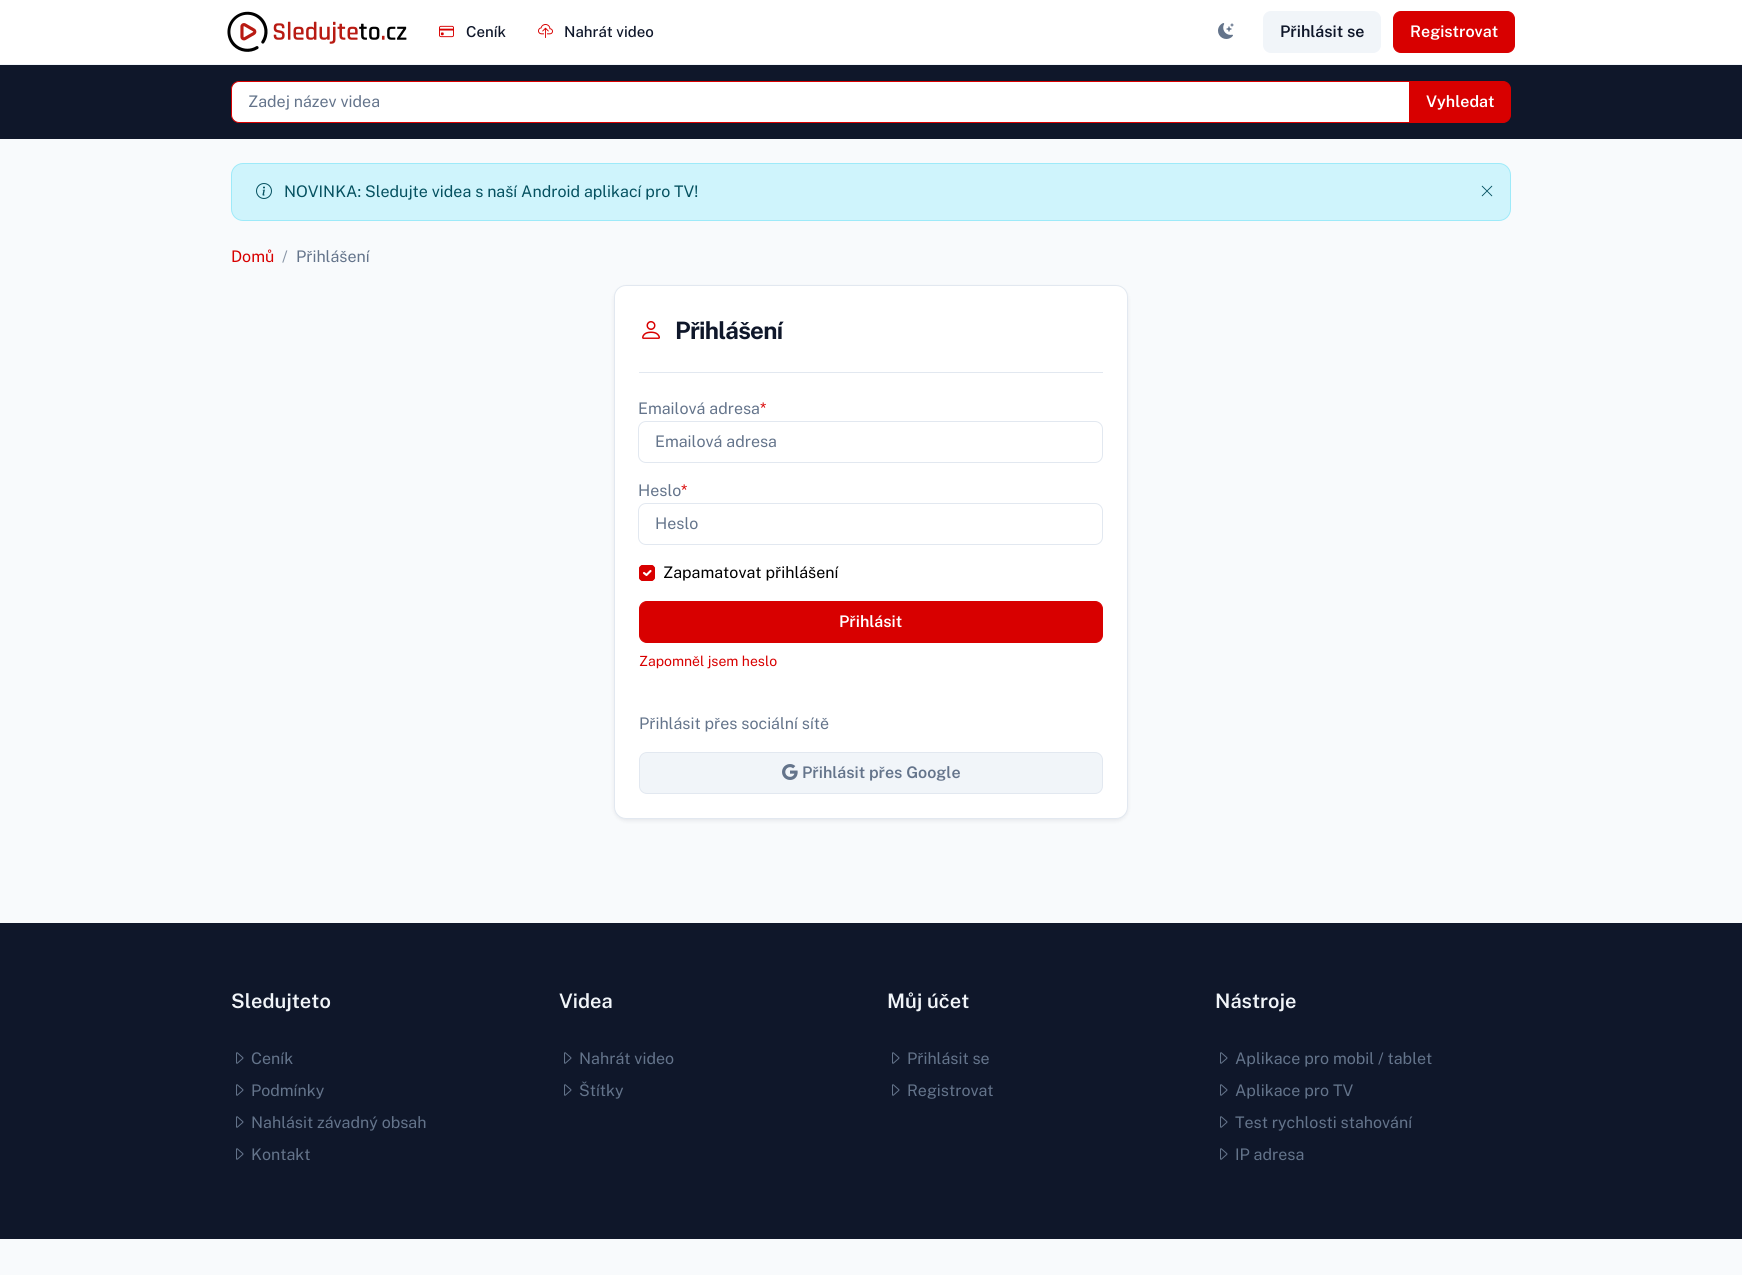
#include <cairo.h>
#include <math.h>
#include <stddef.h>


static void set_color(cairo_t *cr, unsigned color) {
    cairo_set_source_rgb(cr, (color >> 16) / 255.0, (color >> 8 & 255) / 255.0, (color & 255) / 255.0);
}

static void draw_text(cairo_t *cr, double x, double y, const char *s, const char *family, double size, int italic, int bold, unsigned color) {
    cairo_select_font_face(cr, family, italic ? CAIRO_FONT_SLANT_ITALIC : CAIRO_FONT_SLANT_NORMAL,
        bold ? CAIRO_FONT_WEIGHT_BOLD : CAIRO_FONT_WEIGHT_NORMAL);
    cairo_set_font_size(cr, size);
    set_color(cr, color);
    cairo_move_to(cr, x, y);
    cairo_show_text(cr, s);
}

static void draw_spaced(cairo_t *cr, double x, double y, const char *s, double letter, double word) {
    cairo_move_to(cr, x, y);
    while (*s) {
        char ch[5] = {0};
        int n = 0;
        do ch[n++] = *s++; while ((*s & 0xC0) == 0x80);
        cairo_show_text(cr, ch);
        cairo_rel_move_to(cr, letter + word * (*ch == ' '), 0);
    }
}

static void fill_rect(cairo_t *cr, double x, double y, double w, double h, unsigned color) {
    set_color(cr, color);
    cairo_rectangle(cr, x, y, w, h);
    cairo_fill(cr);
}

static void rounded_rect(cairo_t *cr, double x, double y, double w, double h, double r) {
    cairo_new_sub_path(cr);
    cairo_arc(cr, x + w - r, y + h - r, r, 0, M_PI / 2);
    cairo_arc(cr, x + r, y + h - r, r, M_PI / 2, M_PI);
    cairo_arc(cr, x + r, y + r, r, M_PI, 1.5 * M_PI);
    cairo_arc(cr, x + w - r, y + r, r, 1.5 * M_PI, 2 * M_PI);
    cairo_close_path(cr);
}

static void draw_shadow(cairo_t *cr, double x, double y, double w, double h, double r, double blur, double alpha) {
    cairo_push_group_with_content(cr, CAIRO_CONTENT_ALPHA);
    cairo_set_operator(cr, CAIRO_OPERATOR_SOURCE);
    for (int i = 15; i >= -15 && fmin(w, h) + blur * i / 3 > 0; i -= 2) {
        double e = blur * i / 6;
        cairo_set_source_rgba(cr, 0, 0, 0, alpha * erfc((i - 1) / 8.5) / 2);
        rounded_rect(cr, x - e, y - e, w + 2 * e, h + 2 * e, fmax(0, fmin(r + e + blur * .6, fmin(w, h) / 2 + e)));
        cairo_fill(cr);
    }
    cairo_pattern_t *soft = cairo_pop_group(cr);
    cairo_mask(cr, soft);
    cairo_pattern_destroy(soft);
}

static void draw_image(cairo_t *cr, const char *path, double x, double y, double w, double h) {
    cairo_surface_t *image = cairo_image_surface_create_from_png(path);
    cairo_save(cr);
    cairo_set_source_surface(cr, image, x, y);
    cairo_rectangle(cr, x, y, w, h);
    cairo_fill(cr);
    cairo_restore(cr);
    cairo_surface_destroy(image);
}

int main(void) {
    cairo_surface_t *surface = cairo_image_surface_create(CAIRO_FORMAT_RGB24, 1742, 1275);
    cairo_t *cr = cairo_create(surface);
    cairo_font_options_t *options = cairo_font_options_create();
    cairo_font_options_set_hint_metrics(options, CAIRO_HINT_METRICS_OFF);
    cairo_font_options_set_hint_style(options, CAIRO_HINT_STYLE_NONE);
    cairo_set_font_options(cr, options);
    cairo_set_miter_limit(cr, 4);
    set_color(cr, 0xF8FAFC);
    cairo_paint(cr);
    fill_rect(cr, 0, 0, 1742, 64, 0xFFFFFF);
    fill_rect(cr, 0, 64, 1742, 1, 0xF1F5F9);
    draw_image(cr, "assets/img1.png", 227, 11, 180, 41);
    draw_image(cr, "assets/img2.png", 439, 25, 15, 13);
    draw_text(cr, 466, 37, "Ceník", "Public Sans Medium", 15, 0, 0, 0x0F172A);
    draw_image(cr, "assets/img3.png", 538, 24, 15, 14);
    draw_text(cr, 564, 37, "Nahrát video", "Public Sans Medium", 15, 0, 0, 0x0F172A);
    draw_image(cr, "assets/img4.png", 1218, 23, 16, 16);
    set_color(cr, 0xF1F5F9);
    rounded_rect(cr, 1263.5, 11.5, 117, 41, 7.5);
    cairo_fill_preserve(cr);
    cairo_set_line_width(cr, 1);
    cairo_stroke(cr);
    draw_text(cr, 1280, 37, "Přihlásit se", "Public Sans SemiBold", 16, 0, 0, 0x0F172A);
    set_color(cr, 0xD80000);
    rounded_rect(cr, 1393.5, 11.5, 121, 41, 7.5);
    cairo_fill_preserve(cr);
    cairo_stroke(cr);
    draw_text(cr, 1410, 37, "Registrovat", "Public Sans SemiBold", 16, 0, 0, 0xFFFFFF);
    fill_rect(cr, 0, 65, 1742, 74, 0x0F172A);
    set_color(cr, 0xFFFFFF);
    cairo_new_path(cr);
    cairo_move_to(cr, 239, 81.5);
    cairo_line_to(cr, 1409.5, 81.5);
    cairo_line_to(cr, 1409.5, 122.5);
    cairo_line_to(cr, 239, 122.5);
    cairo_curve_to(cr, 235, 122.5, 231.5, 119, 231.5, 115);
    cairo_line_to(cr, 231.5, 89);
    cairo_curve_to(cr, 231.5, 85, 235, 81.5, 239, 81.5);
    cairo_close_path(cr);
    cairo_fill_preserve(cr);
    set_color(cr, 0xD80000);
    cairo_stroke(cr);
    draw_text(cr, 248, 107, "Zadej název videa", "Public Sans", 16, 0, 0, 0x64748B);
    set_color(cr, 0xD80000);
    cairo_new_path(cr);
    cairo_move_to(cr, 1409.5, 81.5);
    cairo_line_to(cr, 1503, 81.5);
    cairo_curve_to(cr, 1507, 81.5, 1510.5, 85, 1510.5, 89);
    cairo_line_to(cr, 1510.5, 115);
    cairo_curve_to(cr, 1510.5, 119, 1507, 122.5, 1503, 122.5);
    cairo_line_to(cr, 1409.5, 122.5);
    cairo_close_path(cr);
    cairo_fill_preserve(cr);
    cairo_stroke(cr);
    draw_text(cr, 1426, 107, "Vyhledat", "Public Sans SemiBold", 16, 0, 0, 0xFFFFFF);
    set_color(cr, 0xCFF4FC);
    rounded_rect(cr, 231.5, 163.5, 1279, 57, 11.5);
    cairo_fill_preserve(cr);
    set_color(cr, 0x9EEAF9);
    cairo_stroke(cr);
    draw_image(cr, "assets/img5.png", 256, 183, 16, 16);
    draw_text(cr, 284, 197, "NOVINKA: Sledujte videa s naší Android aplikací pro TV!", "Public Sans", 16, 0, 0, 0x055160);
    draw_image(cr, "assets/img6.png", 1481, 185, 12, 12);
    draw_text(cr, 231, 262, "Domů", "Public Sans", 16, 0, 0, 0xD80000);
    draw_text(cr, 282, 262, "/", "Public Sans", 16, 0, 0, 0x8996A7);
    draw_text(cr, 296, 262, "Přihlášení", "Public Sans", 16, 0, 0, 0x64748B);
    set_color(cr, 0x020617);
    draw_shadow(cr, 614, 287, 514, 534, 12, 2, 0.07);
    set_color(cr, 0xFFFFFF);
    rounded_rect(cr, 614.5, 285.5, 513, 533, 11.5);
    cairo_fill_preserve(cr);
    set_color(cr, 0xE2E8F0);
    cairo_stroke(cr);
    fill_rect(cr, 639, 372, 464, 1, 0xE2E8F0);
    draw_image(cr, "assets/img7.png", 642, 321, 18, 18);
    cairo_select_font_face(cr, "Public Sans", CAIRO_FONT_SLANT_NORMAL, CAIRO_FONT_WEIGHT_BOLD);
    cairo_set_font_size(cr, 24);
    set_color(cr, 0x0F172A);
    draw_spaced(cr, 675, 339, "Přihlášení", -0.75, 0);
    draw_text(cr, 638, 414, "Emailová adresa", "Public Sans", 16, 0, 0, 0x64748B);
    draw_text(cr, 760, 414, "*", "Public Sans", 16, 0, 0, 0xD80000);
    rounded_rect(cr, 638.5, 421.5, 464, 41, 7.5);
    set_color(cr, 0xE2E8F0);
    cairo_stroke(cr);
    draw_text(cr, 655, 447, "Emailová adresa", "Public Sans", 16, 0, 0, 0x64748B);
    draw_text(cr, 638, 496, "Heslo", "Public Sans", 16, 0, 0, 0x64748B);
    draw_text(cr, 681, 496, "*", "Public Sans", 16, 0, 0, 0xD80000);
    rounded_rect(cr, 638.5, 503.5, 464, 41, 7.5);
    set_color(cr, 0xE2E8F0);
    cairo_stroke(cr);
    draw_text(cr, 655, 529, "Heslo", "Public Sans", 16, 0, 0, 0x64748B);
    set_color(cr, 0xD80000);
    rounded_rect(cr, 639, 565, 16, 16, 4);
    cairo_fill(cr);
    cairo_new_path(cr);
    cairo_move_to(cr, 644, 573);
    cairo_line_to(cr, 646.5, 575);
    cairo_line_to(cr, 650.5, 571);
    set_color(cr, 0xFFFFFF);
    cairo_set_line_width(cr, 2.1);
    cairo_set_line_cap(cr, CAIRO_LINE_CAP_ROUND);
    cairo_set_line_join(cr, CAIRO_LINE_JOIN_ROUND);
    cairo_stroke(cr);
    rounded_rect(cr, 639.5, 565.5, 15, 15, 3.5);
    set_color(cr, 0xD80000);
    cairo_set_line_width(cr, 1);
    cairo_set_line_cap(cr, CAIRO_LINE_CAP_BUTT);
    cairo_set_line_join(cr, CAIRO_LINE_JOIN_MITER);
    cairo_stroke(cr);
    draw_text(cr, 663, 578, "Zapamatovat přihlášení", "Public Sans", 16, 0, 0, 0x000000);
    set_color(cr, 0xD80000);
    rounded_rect(cr, 639.5, 601.5, 463, 41, 7.5);
    cairo_fill_preserve(cr);
    cairo_stroke(cr);
    draw_text(cr, 839, 627, "Přihlásit", "Public Sans SemiBold", 16, 0, 0, 0xFFFFFF);
    draw_text(cr, 639, 666, "Zapomněl jsem heslo", "Public Sans", 14, 0, 0, 0xD80000);
    draw_text(cr, 639, 729, "Přihlásit přes sociální sítě", "Public Sans", 16, 0, 0, 0x64748B);
    set_color(cr, 0xF1F5F9);
    rounded_rect(cr, 639.5, 752.5, 463, 41, 7.5);
    cairo_fill_preserve(cr);
    set_color(cr, 0xE2E8F0);
    cairo_stroke(cr);
    draw_image(cr, "assets/img8.png", 782, 764, 16, 16);
    draw_text(cr, 802, 778, "Přihlásit přes Google", "Public Sans SemiBold", 16, 0, 0, 0x64748B);
    fill_rect(cr, 0, 923, 1742, 316, 0x0F172A);
    draw_text(cr, 231, 1008, "Sledujteto", "Public Sans SemiBold", 20, 0, 0, 0xF1F5F9);
    draw_image(cr, "assets/img9.png", 236, 1052, 8, 12);
    draw_text(cr, 251, 1064, "Ceník", "Public Sans", 16, 0, 0, 0x64748B);
    draw_image(cr, "assets/img9.png", 236, 1084, 8, 12);
    draw_text(cr, 251, 1096, "Podmínky", "Public Sans", 16, 0, 0, 0x64748B);
    draw_image(cr, "assets/img9.png", 236, 1116, 8, 12);
    draw_text(cr, 251, 1128, "Nahlásit závadný obsah", "Public Sans", 16, 0, 0, 0x64748B);
    draw_image(cr, "assets/img9.png", 236, 1148, 8, 12);
    draw_text(cr, 251, 1160, "Kontakt", "Public Sans", 16, 0, 0, 0x64748B);
    draw_text(cr, 559, 1008, "Videa", "Public Sans SemiBold", 20, 0, 0, 0xF1F5F9);
    draw_image(cr, "assets/img9.png", 564, 1052, 8, 12);
    draw_text(cr, 579, 1064, "Nahrát video", "Public Sans", 16, 0, 0, 0x64748B);
    draw_image(cr, "assets/img9.png", 564, 1084, 8, 12);
    draw_text(cr, 579, 1096, "Štítky", "Public Sans", 16, 0, 0, 0x64748B);
    draw_text(cr, 887, 1008, "Můj účet", "Public Sans SemiBold", 20, 0, 0, 0xF1F5F9);
    draw_image(cr, "assets/img9.png", 892, 1052, 8, 12);
    draw_text(cr, 907, 1064, "Přihlásit se", "Public Sans", 16, 0, 0, 0x64748B);
    draw_image(cr, "assets/img9.png", 892, 1084, 8, 12);
    draw_text(cr, 907, 1096, "Registrovat", "Public Sans", 16, 0, 0, 0x64748B);
    draw_text(cr, 1215, 1008, "Nástroje", "Public Sans SemiBold", 20, 0, 0, 0xF1F5F9);
    draw_image(cr, "assets/img9.png", 1220, 1052, 8, 12);
    draw_text(cr, 1235, 1064, "Aplikace pro mobil / tablet", "Public Sans", 16, 0, 0, 0x64748B);
    draw_image(cr, "assets/img9.png", 1220, 1084, 8, 12);
    draw_text(cr, 1235, 1096, "Aplikace pro TV", "Public Sans", 16, 0, 0, 0x64748B);
    draw_image(cr, "assets/img9.png", 1220, 1116, 8, 12);
    draw_text(cr, 1235, 1128, "Test rychlosti stahování", "Public Sans", 16, 0, 0, 0x64748B);
    draw_image(cr, "assets/img9.png", 1220, 1148, 8, 12);
    draw_text(cr, 1235, 1160, "IP adresa", "Public Sans", 16, 0, 0, 0x64748B);
    cairo_surface_write_to_png(surface, "output.png");
    cairo_font_options_destroy(options);
    cairo_destroy(cr);
    cairo_surface_destroy(surface);
    return 0;
}
